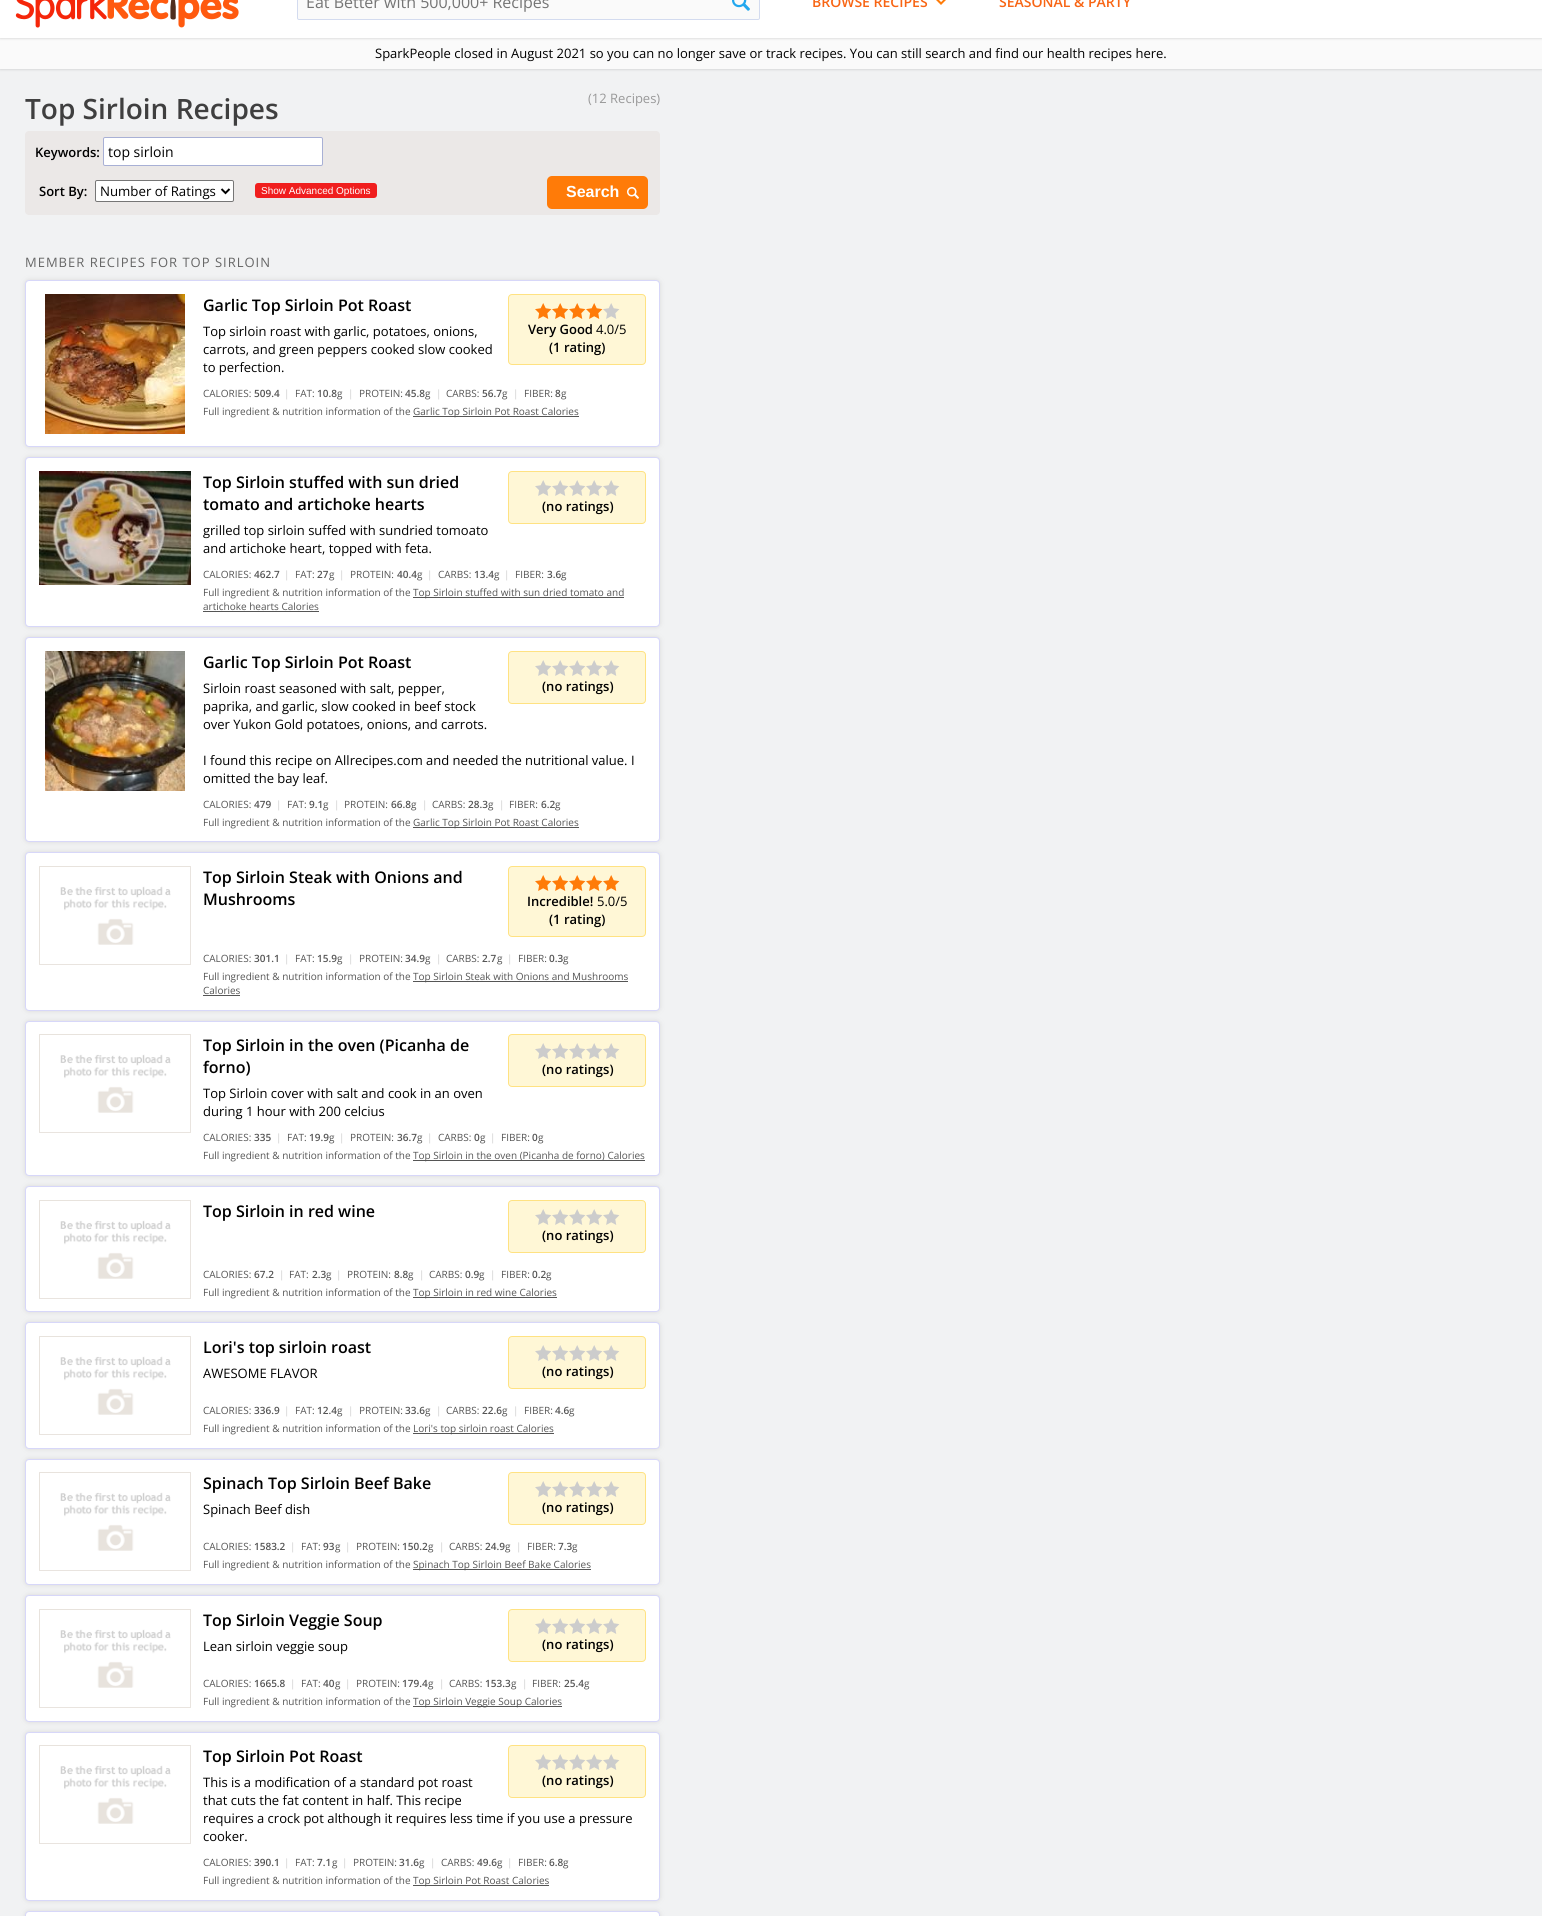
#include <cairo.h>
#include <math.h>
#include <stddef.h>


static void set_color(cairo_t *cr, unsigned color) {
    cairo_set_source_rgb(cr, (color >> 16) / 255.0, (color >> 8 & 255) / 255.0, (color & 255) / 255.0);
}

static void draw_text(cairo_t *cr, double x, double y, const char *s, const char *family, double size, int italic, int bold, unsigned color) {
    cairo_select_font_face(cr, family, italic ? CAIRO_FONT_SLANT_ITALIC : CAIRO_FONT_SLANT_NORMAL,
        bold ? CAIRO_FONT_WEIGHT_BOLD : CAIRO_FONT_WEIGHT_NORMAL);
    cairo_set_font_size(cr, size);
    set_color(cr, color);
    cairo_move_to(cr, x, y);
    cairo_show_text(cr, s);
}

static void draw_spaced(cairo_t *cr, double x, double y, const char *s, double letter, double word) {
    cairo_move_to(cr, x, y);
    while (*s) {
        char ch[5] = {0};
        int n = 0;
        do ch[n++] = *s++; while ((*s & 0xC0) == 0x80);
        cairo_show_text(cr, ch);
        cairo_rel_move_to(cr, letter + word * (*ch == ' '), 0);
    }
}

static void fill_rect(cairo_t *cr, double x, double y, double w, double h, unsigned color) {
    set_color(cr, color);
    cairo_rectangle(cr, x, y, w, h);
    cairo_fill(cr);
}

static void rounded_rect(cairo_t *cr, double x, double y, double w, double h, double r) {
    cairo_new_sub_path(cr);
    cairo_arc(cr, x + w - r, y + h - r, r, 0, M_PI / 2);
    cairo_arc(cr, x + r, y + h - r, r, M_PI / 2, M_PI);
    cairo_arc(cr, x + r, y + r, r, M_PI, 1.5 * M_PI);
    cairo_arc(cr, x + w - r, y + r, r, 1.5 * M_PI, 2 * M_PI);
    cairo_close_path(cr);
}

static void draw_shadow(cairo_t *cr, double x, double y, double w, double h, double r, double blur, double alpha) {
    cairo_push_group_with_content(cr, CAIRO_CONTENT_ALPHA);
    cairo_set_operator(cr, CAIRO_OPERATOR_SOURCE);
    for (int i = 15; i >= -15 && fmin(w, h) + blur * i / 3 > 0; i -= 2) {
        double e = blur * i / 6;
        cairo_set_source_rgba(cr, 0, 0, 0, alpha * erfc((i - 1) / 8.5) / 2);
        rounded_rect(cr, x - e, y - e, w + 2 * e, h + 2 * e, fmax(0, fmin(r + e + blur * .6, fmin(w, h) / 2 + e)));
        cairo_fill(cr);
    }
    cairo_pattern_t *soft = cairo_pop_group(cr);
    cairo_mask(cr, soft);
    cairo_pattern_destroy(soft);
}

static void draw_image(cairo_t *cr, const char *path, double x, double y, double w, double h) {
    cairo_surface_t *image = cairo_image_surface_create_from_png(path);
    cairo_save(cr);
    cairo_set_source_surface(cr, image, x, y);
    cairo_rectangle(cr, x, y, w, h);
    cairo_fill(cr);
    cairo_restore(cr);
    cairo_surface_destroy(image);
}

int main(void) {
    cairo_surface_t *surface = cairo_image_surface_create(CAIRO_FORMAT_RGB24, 1542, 1916);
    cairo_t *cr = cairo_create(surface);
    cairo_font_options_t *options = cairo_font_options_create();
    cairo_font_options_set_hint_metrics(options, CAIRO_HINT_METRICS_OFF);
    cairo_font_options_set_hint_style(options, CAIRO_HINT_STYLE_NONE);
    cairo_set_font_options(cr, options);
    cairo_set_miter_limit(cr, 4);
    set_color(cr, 0xF1F2F3);
    cairo_paint(cr);
    set_color(cr, 0x000000);
    draw_shadow(cr, 0, -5, 1542, 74, 0, 1.5, 0.2);
    fill_rect(cr, 0, 38, 1542, 31, 0xFAFAFA);
    set_color(cr, 0x000000);
    draw_shadow(cr, 0, -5, 1542, 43, 0, 1.5, 0.2);
    fill_rect(cr, 0, 0, 1542, 38, 0xFFFFFF);
    draw_image(cr, "assets/img1.png", 15, 0, 224, 28);
    set_color(cr, 0xFAFAFA);
    rounded_rect(cr, 297.5, -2.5, 462, 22, 1.5);
    cairo_fill_preserve(cr);
    set_color(cr, 0xD3DBEF);
    cairo_set_line_width(cr, 1);
    cairo_stroke(cr);
    draw_text(cr, 306, 8, "Eat Better with 500,000+ Recipes", "Open Sans", 16, 0, 0, 0x757575);
    draw_image(cr, "assets/img2.png", 732, 0, 18, 11);
    draw_text(cr, 812, 7, "BROWSE RECIPES", "Open Sans SemiBold", 14, 0, 0, 0xF86514);
    draw_image(cr, "assets/img3.png", 936, 0, 10, 5);
    draw_text(cr, 999, 7, "SEASONAL & PARTY", "Open Sans SemiBold", 14, 0, 0, 0xF86514);
    draw_text(cr, 375, 58, "SparkPeople closed in August 2021 so you can no longer save or track recipes. You can still search and find our health recipes here.", "Open Sans", 13, 0, 0, 0x000000);
    draw_text(cr, 25, 119, "Top Sirloin Recipes", "Open Sans SemiBold", 28, 0, 0, 0x3F3F3F);
    draw_text(cr, 588, 103, "(12 Recipes)", "Open Sans", 13, 0, 0, 0x999999);
    set_color(cr, 0xEBE8E7);
    rounded_rect(cr, 25, 131, 635, 84, 4);
    cairo_fill(cr);
    draw_text(cr, 35, 157, "Keywords:", "Open Sans SemiBold", 13, 0, 0, 0x000000);
    set_color(cr, 0xFFFFFF);
    rounded_rect(cr, 103.5, 137.5, 219, 28, 1.5);
    cairo_fill_preserve(cr);
    set_color(cr, 0xA8B0D5);
    cairo_stroke(cr);
    draw_text(cr, 108, 157, "top sirloin", "Open Sans", 14, 0, 0, 0x000000);
    draw_text(cr, 39, 196, "Sort By:", "Open Sans SemiBold", 13, 0, 0, 0x000000);
    set_color(cr, 0xFFFFFF);
    rounded_rect(cr, 95.5, 180.5, 138, 21, 1.5);
    cairo_fill_preserve(cr);
    set_color(cr, 0x767676);
    cairo_stroke(cr);
    cairo_new_path(cr);
    cairo_move_to(cr, 221.5, 189);
    cairo_line_to(cr, 225.5, 193);
    cairo_line_to(cr, 229.5, 189);
    set_color(cr, 0x000000);
    cairo_set_line_width(cr, 2);
    cairo_stroke(cr);
    draw_text(cr, 100, 196, "Number of Ratings", "Open Sans", 13.25, 0, 0, 0x000000);
    set_color(cr, 0xF01E1E);
    rounded_rect(cr, 255, 183, 122, 15, 3);
    cairo_fill(cr);
    draw_text(cr, 261, 194, "Show Advanced Options", "Liberation Sans", 10, 0, 0, 0xFFFFFF);
    set_color(cr, 0xFF7B08);
    rounded_rect(cr, 547, 176, 101, 33, 5);
    cairo_fill(cr);
    draw_text(cr, 566, 197, "Search", "Liberation Sans", 16, 0, 1, 0xFFFFFF);
    draw_image(cr, "assets/img4.png", 627, 187, 12, 12);
    cairo_select_font_face(cr, "Open Sans", CAIRO_FONT_SLANT_NORMAL, CAIRO_FONT_WEIGHT_NORMAL);
    cairo_set_font_size(cr, 13);
    set_color(cr, 0x666666);
    draw_spaced(cr, 25, 267, "MEMBER RECIPES FOR TOP SIRLOIN", 1, 0);
    set_color(cr, 0xDADADA);
    draw_shadow(cr, 25, 280, 635, 167, 4, 2.5, 1);
    set_color(cr, 0xFFFFFF);
    rounded_rect(cr, 25.5, 280.5, 634, 166, 3.5);
    cairo_fill_preserve(cr);
    set_color(cr, 0xD7D7F9);
    cairo_set_line_width(cr, 1);
    cairo_stroke(cr);
    draw_image(cr, "assets/img5.png", 45, 294, 140, 140);
    draw_text(cr, 203, 311, "Garlic Top Sirloin Pot Roast", "Open Sans SemiBold", 16, 0, 0, 0x000000);
    draw_text(cr, 203, 336, "Top sirloin roast with garlic, potatoes, onions,", "Open Sans", 13, 0, 0, 0x000000);
    draw_text(cr, 203, 354, "carrots, and green peppers cooked slow cooked", "Open Sans", 13, 0, 0, 0x000000);
    draw_text(cr, 203, 372, "to perfection.", "Open Sans", 13, 0, 0, 0x000000);
    set_color(cr, 0xFFF7D6);
    rounded_rect(cr, 508.5, 294.5, 137, 70, 3.5);
    cairo_fill_preserve(cr);
    set_color(cr, 0xFFE282);
    cairo_stroke(cr);
    draw_image(cr, "assets/img6.png", 535, 303, 17, 16);
    draw_image(cr, "assets/img6.png", 552, 303, 17, 16);
    draw_image(cr, "assets/img6.png", 569, 303, 17, 16);
    draw_image(cr, "assets/img6.png", 586, 303, 17, 16);
    draw_image(cr, "assets/img7.png", 603, 303, 17, 16);
    draw_text(cr, 528, 334, "Very Good", "Open Sans SemiBold", 13, 0, 0, 0x000000);
    draw_text(cr, 596, 334, "4.0/5", "Open Sans", 13, 0, 0, 0x000000);
    draw_text(cr, 549, 352, "(1 rating)", "Open Sans SemiBold", 13, 0, 0, 0x000000);
    draw_text(cr, 203, 397, "CALORIES:", "Open Sans", 10, 0, 0, 0x555555);
    draw_text(cr, 254, 397, "509.4", "Open Sans SemiBold", 10, 0, 0, 0x555555);
    draw_text(cr, 284, 397, "|", "Open Sans", 10, 0, 0, 0xCCCCCC);
    draw_text(cr, 295, 397, "FAT:", "Open Sans", 10, 0, 0, 0x555555);
    draw_text(cr, 317, 397, "10.8", "Open Sans SemiBold", 10, 0, 0, 0x555555);
    draw_text(cr, 337, 397, "g", "Open Sans", 10, 0, 0, 0x555555);
    draw_text(cr, 348, 397, "|", "Open Sans", 10, 0, 0, 0xCCCCCC);
    draw_text(cr, 359, 397, "PROTEIN:", "Open Sans", 10, 0, 0, 0x555555);
    draw_text(cr, 405, 397, "45.8", "Open Sans SemiBold", 10, 0, 0, 0x555555);
    draw_text(cr, 425, 397, "g", "Open Sans", 10, 0, 0, 0x555555);
    draw_text(cr, 436, 397, "|", "Open Sans", 10, 0, 0, 0xCCCCCC);
    draw_text(cr, 446, 397, "CARBS:", "Open Sans", 10, 0, 0, 0x555555);
    draw_text(cr, 482, 397, "56.7", "Open Sans SemiBold", 10, 0, 0, 0x555555);
    draw_text(cr, 502, 397, "g", "Open Sans", 10, 0, 0, 0x555555);
    draw_text(cr, 513, 397, "|", "Open Sans", 10, 0, 0, 0xCCCCCC);
    draw_text(cr, 524, 397, "FIBER:", "Open Sans", 10, 0, 0, 0x555555);
    draw_text(cr, 555, 397, "8", "Open Sans SemiBold", 10, 0, 0, 0x555555);
    draw_text(cr, 561, 397, "g", "Open Sans", 10, 0, 0, 0x555555);
    draw_text(cr, 203, 415, "Full ingredient & nutrition information of the", "Open Sans", 10, 0, 0, 0x555555);
    fill_rect(cr, 413, 416, 166, 1, 0x555555);
    draw_text(cr, 413, 415, "Garlic Top Sirloin Pot Roast Calories", "Open Sans", 10, 0, 0, 0x555555);
    set_color(cr, 0xDADADA);
    draw_shadow(cr, 25, 457, 635, 170, 4, 2.5, 1);
    set_color(cr, 0xFFFFFF);
    rounded_rect(cr, 25.5, 457.5, 634, 169, 3.5);
    cairo_fill_preserve(cr);
    set_color(cr, 0xD7D7F9);
    cairo_stroke(cr);
    draw_image(cr, "assets/img8.png", 39, 471, 152, 114);
    draw_text(cr, 203, 488, "Top Sirloin stuffed with sun dried", "Open Sans SemiBold", 16, 0, 0, 0x000000);
    draw_text(cr, 203, 510, "tomato and artichoke hearts", "Open Sans SemiBold", 16, 0, 0, 0x000000);
    set_color(cr, 0xFFF7D6);
    rounded_rect(cr, 508.5, 471.5, 137, 52, 3.5);
    cairo_fill_preserve(cr);
    set_color(cr, 0xFFE282);
    cairo_stroke(cr);
    draw_image(cr, "assets/img7.png", 535, 480, 17, 16);
    draw_image(cr, "assets/img7.png", 552, 480, 17, 16);
    draw_image(cr, "assets/img7.png", 569, 480, 17, 16);
    draw_image(cr, "assets/img7.png", 586, 480, 17, 16);
    draw_image(cr, "assets/img7.png", 603, 480, 17, 16);
    draw_text(cr, 542, 511, "(no ratings)", "Open Sans SemiBold", 13, 0, 0, 0x000000);
    draw_text(cr, 203, 535, "grilled top sirloin suffed with sundried tomoato", "Open Sans", 13, 0, 0, 0x000000);
    draw_text(cr, 203, 553, "and artichoke heart, topped with feta.", "Open Sans", 13, 0, 0, 0x000000);
    draw_text(cr, 203, 578, "CALORIES:", "Open Sans", 10, 0, 0, 0x555555);
    draw_text(cr, 254, 578, "462.7", "Open Sans SemiBold", 10, 0, 0, 0x555555);
    draw_text(cr, 284, 578, "|", "Open Sans", 10, 0, 0, 0xCCCCCC);
    draw_text(cr, 295, 578, "FAT:", "Open Sans", 10, 0, 0, 0x555555);
    draw_text(cr, 317, 578, "27", "Open Sans SemiBold", 10, 0, 0, 0x555555);
    draw_text(cr, 329, 578, "g", "Open Sans", 10, 0, 0, 0x555555);
    draw_text(cr, 339, 578, "|", "Open Sans", 10, 0, 0, 0xCCCCCC);
    draw_text(cr, 350, 578, "PROTEIN:", "Open Sans", 10, 0, 0, 0x555555);
    draw_text(cr, 397, 578, "40.4", "Open Sans SemiBold", 10, 0, 0, 0x555555);
    draw_text(cr, 417, 578, "g", "Open Sans", 10, 0, 0, 0x555555);
    draw_text(cr, 427, 578, "|", "Open Sans", 10, 0, 0, 0xCCCCCC);
    draw_text(cr, 438, 578, "CARBS:", "Open Sans", 10, 0, 0, 0x555555);
    draw_text(cr, 474, 578, "13.4", "Open Sans SemiBold", 10, 0, 0, 0x555555);
    draw_text(cr, 494, 578, "g", "Open Sans", 10, 0, 0, 0x555555);
    draw_text(cr, 504, 578, "|", "Open Sans", 10, 0, 0, 0xCCCCCC);
    draw_text(cr, 515, 578, "FIBER:", "Open Sans", 10, 0, 0, 0x555555);
    draw_text(cr, 547, 578, "3.6", "Open Sans SemiBold", 10, 0, 0, 0x555555);
    draw_text(cr, 561, 578, "g", "Open Sans", 10, 0, 0, 0x555555);
    draw_text(cr, 203, 596, "Full ingredient & nutrition information of the", "Open Sans", 10, 0, 0, 0x555555);
    fill_rect(cr, 413, 597, 211, 1, 0x555555);
    draw_text(cr, 413, 596, "Top Sirloin stuffed with sun dried tomato and", "Open Sans", 10, 0, 0, 0x555555);
    draw_text(cr, 203, 610, "artichoke hearts Calories", "Open Sans", 10, 0, 0, 0x555555);
    fill_rect(cr, 203, 611, 116, 1, 0x555555);
    set_color(cr, 0xDADADA);
    draw_shadow(cr, 25, 637, 635, 205, 4, 2.5, 1);
    set_color(cr, 0xFFFFFF);
    rounded_rect(cr, 25.5, 637.5, 634, 204, 3.5);
    cairo_fill_preserve(cr);
    set_color(cr, 0xD7D7F9);
    cairo_stroke(cr);
    draw_image(cr, "assets/img9.png", 45, 651, 140, 140);
    draw_text(cr, 203, 668, "Garlic Top Sirloin Pot Roast", "Open Sans SemiBold", 16, 0, 0, 0x000000);
    set_color(cr, 0xFFF7D6);
    rounded_rect(cr, 508.5, 651.5, 137, 52, 3.5);
    cairo_fill_preserve(cr);
    set_color(cr, 0xFFE282);
    cairo_stroke(cr);
    draw_image(cr, "assets/img7.png", 535, 660, 17, 16);
    draw_image(cr, "assets/img7.png", 552, 660, 17, 16);
    draw_image(cr, "assets/img7.png", 569, 660, 17, 16);
    draw_image(cr, "assets/img7.png", 586, 660, 17, 16);
    draw_image(cr, "assets/img7.png", 603, 660, 17, 16);
    draw_text(cr, 542, 691, "(no ratings)", "Open Sans SemiBold", 13, 0, 0, 0x000000);
    draw_text(cr, 203, 693, "Sirloin roast seasoned with salt, pepper,", "Open Sans", 13, 0, 0, 0x000000);
    draw_text(cr, 203, 711, "paprika, and garlic, slow cooked in beef stock", "Open Sans", 13, 0, 0, 0x000000);
    draw_text(cr, 203, 729, "over Yukon Gold potatoes, onions, and carrots.", "Open Sans", 13, 0, 0, 0x000000);
    draw_text(cr, 203, 765, "I found this recipe on Allrecipes.com and needed the nutritional value. I", "Open Sans", 13, 0, 0, 0x000000);
    draw_text(cr, 203, 783, "omitted the bay leaf.", "Open Sans", 13, 0, 0, 0x000000);
    draw_text(cr, 203, 808, "CALORIES:", "Open Sans", 10, 0, 0, 0x555555);
    draw_text(cr, 254, 808, "479", "Open Sans SemiBold", 10, 0, 0, 0x555555);
    draw_text(cr, 276, 808, "|", "Open Sans", 10, 0, 0, 0xCCCCCC);
    draw_text(cr, 287, 808, "FAT:", "Open Sans", 10, 0, 0, 0x555555);
    draw_text(cr, 309, 808, "9.1", "Open Sans SemiBold", 10, 0, 0, 0x555555);
    draw_text(cr, 323, 808, "g", "Open Sans", 10, 0, 0, 0x555555);
    draw_text(cr, 334, 808, "|", "Open Sans", 10, 0, 0, 0xCCCCCC);
    draw_text(cr, 344, 808, "PROTEIN:", "Open Sans", 10, 0, 0, 0x555555);
    draw_text(cr, 391, 808, "66.8", "Open Sans SemiBold", 10, 0, 0, 0x555555);
    draw_text(cr, 411, 808, "g", "Open Sans", 10, 0, 0, 0x555555);
    draw_text(cr, 422, 808, "|", "Open Sans", 10, 0, 0, 0xCCCCCC);
    draw_text(cr, 432, 808, "CARBS:", "Open Sans", 10, 0, 0, 0x555555);
    draw_text(cr, 468, 808, "28.3", "Open Sans SemiBold", 10, 0, 0, 0x555555);
    draw_text(cr, 488, 808, "g", "Open Sans", 10, 0, 0, 0x555555);
    draw_text(cr, 499, 808, "|", "Open Sans", 10, 0, 0, 0xCCCCCC);
    draw_text(cr, 509, 808, "FIBER:", "Open Sans", 10, 0, 0, 0x555555);
    draw_text(cr, 541, 808, "6.2", "Open Sans SemiBold", 10, 0, 0, 0x555555);
    draw_text(cr, 555, 808, "g", "Open Sans", 10, 0, 0, 0x555555);
    draw_text(cr, 203, 826, "Full ingredient & nutrition information of the", "Open Sans", 10, 0, 0, 0x555555);
    fill_rect(cr, 413, 827, 166, 1, 0x555555);
    draw_text(cr, 413, 826, "Garlic Top Sirloin Pot Roast Calories", "Open Sans", 10, 0, 0, 0x555555);
    set_color(cr, 0xDADADA);
    draw_shadow(cr, 25, 852, 635, 159, 4, 2.5, 1);
    set_color(cr, 0xFFFFFF);
    rounded_rect(cr, 25.5, 852.5, 634, 158, 3.5);
    cairo_fill_preserve(cr);
    set_color(cr, 0xD7D7F9);
    cairo_stroke(cr);
    draw_image(cr, "assets/img10.png", 39, 866, 152, 99);
    draw_text(cr, 203, 883, "Top Sirloin Steak with Onions and", "Open Sans SemiBold", 16, 0, 0, 0x000000);
    draw_text(cr, 203, 905, "Mushrooms", "Open Sans SemiBold", 16, 0, 0, 0x000000);
    set_color(cr, 0xFFF7D6);
    rounded_rect(cr, 508.5, 866.5, 137, 70, 3.5);
    cairo_fill_preserve(cr);
    set_color(cr, 0xFFE282);
    cairo_stroke(cr);
    draw_image(cr, "assets/img6.png", 535, 875, 17, 16);
    draw_image(cr, "assets/img6.png", 552, 875, 17, 16);
    draw_image(cr, "assets/img6.png", 569, 875, 17, 16);
    draw_image(cr, "assets/img6.png", 586, 875, 17, 16);
    draw_image(cr, "assets/img6.png", 603, 875, 17, 16);
    draw_text(cr, 527, 906, "Incredible!", "Open Sans SemiBold", 13, 0, 0, 0x000000);
    draw_text(cr, 597, 906, "5.0/5", "Open Sans", 13, 0, 0, 0x000000);
    draw_text(cr, 549, 924, "(1 rating)", "Open Sans SemiBold", 13, 0, 0, 0x000000);
    draw_text(cr, 203, 962, "CALORIES:", "Open Sans", 10, 0, 0, 0x555555);
    draw_text(cr, 254, 962, "301.1", "Open Sans SemiBold", 10, 0, 0, 0x555555);
    draw_text(cr, 284, 962, "|", "Open Sans", 10, 0, 0, 0xCCCCCC);
    draw_text(cr, 295, 962, "FAT:", "Open Sans", 10, 0, 0, 0x555555);
    draw_text(cr, 317, 962, "15.9", "Open Sans SemiBold", 10, 0, 0, 0x555555);
    draw_text(cr, 337, 962, "g", "Open Sans", 10, 0, 0, 0x555555);
    draw_text(cr, 348, 962, "|", "Open Sans", 10, 0, 0, 0xCCCCCC);
    draw_text(cr, 359, 962, "PROTEIN:", "Open Sans", 10, 0, 0, 0x555555);
    draw_text(cr, 405, 962, "34.9", "Open Sans SemiBold", 10, 0, 0, 0x555555);
    draw_text(cr, 425, 962, "g", "Open Sans", 10, 0, 0, 0x555555);
    draw_text(cr, 436, 962, "|", "Open Sans", 10, 0, 0, 0xCCCCCC);
    draw_text(cr, 446, 962, "CARBS:", "Open Sans", 10, 0, 0, 0x555555);
    draw_text(cr, 482, 962, "2.7", "Open Sans SemiBold", 10, 0, 0, 0x555555);
    draw_text(cr, 497, 962, "g", "Open Sans", 10, 0, 0, 0x555555);
    draw_text(cr, 507, 962, "|", "Open Sans", 10, 0, 0, 0xCCCCCC);
    draw_text(cr, 518, 962, "FIBER:", "Open Sans", 10, 0, 0, 0x555555);
    draw_text(cr, 549, 962, "0.3", "Open Sans SemiBold", 10, 0, 0, 0x555555);
    draw_text(cr, 563, 962, "g", "Open Sans", 10, 0, 0, 0x555555);
    draw_text(cr, 203, 980, "Full ingredient & nutrition information of the", "Open Sans", 10, 0, 0, 0x555555);
    fill_rect(cr, 413, 981, 215, 1, 0x555555);
    draw_text(cr, 413, 980, "Top Sirloin Steak with Onions and Mushrooms", "Open Sans", 10, 0, 0, 0x555555);
    draw_text(cr, 203, 994, "Calories", "Open Sans", 10, 0, 0, 0x555555);
    fill_rect(cr, 203, 995, 37, 1, 0x555555);
    set_color(cr, 0xDADADA);
    draw_shadow(cr, 25, 1021, 635, 155, 4, 2.5, 1);
    set_color(cr, 0xFFFFFF);
    rounded_rect(cr, 25.5, 1021.5, 634, 154, 3.5);
    cairo_fill_preserve(cr);
    set_color(cr, 0xD7D7F9);
    cairo_stroke(cr);
    draw_image(cr, "assets/img10.png", 39, 1034, 152, 99);
    draw_text(cr, 203, 1051, "Top Sirloin in the oven (Picanha de", "Open Sans SemiBold", 16, 0, 0, 0x000000);
    draw_text(cr, 203, 1073, "forno)", "Open Sans SemiBold", 16, 0, 0, 0x000000);
    set_color(cr, 0xFFF7D6);
    rounded_rect(cr, 508.5, 1034.5, 137, 52, 3.5);
    cairo_fill_preserve(cr);
    set_color(cr, 0xFFE282);
    cairo_stroke(cr);
    draw_image(cr, "assets/img7.png", 535, 1043, 17, 16);
    draw_image(cr, "assets/img7.png", 552, 1043, 17, 16);
    draw_image(cr, "assets/img7.png", 569, 1043, 17, 16);
    draw_image(cr, "assets/img7.png", 586, 1043, 17, 16);
    draw_image(cr, "assets/img7.png", 603, 1043, 17, 16);
    draw_text(cr, 542, 1074, "(no ratings)", "Open Sans SemiBold", 13, 0, 0, 0x000000);
    draw_text(cr, 203, 1098, "Top Sirloin cover with salt and cook in an oven", "Open Sans", 13, 0, 0, 0x000000);
    draw_text(cr, 203, 1116, "during 1 hour with 200 celcius", "Open Sans", 13, 0, 0, 0x000000);
    draw_text(cr, 203, 1141, "CALORIES:", "Open Sans", 10, 0, 0, 0x555555);
    draw_text(cr, 254, 1141, "335", "Open Sans SemiBold", 10, 0, 0, 0x555555);
    draw_text(cr, 276, 1141, "|", "Open Sans", 10, 0, 0, 0xCCCCCC);
    draw_text(cr, 287, 1141, "FAT:", "Open Sans", 10, 0, 0, 0x555555);
    draw_text(cr, 309, 1141, "19.9", "Open Sans SemiBold", 10, 0, 0, 0x555555);
    draw_text(cr, 329, 1141, "g", "Open Sans", 10, 0, 0, 0x555555);
    draw_text(cr, 339, 1141, "|", "Open Sans", 10, 0, 0, 0xCCCCCC);
    draw_text(cr, 350, 1141, "PROTEIN:", "Open Sans", 10, 0, 0, 0x555555);
    draw_text(cr, 397, 1141, "36.7", "Open Sans SemiBold", 10, 0, 0, 0x555555);
    draw_text(cr, 417, 1141, "g", "Open Sans", 10, 0, 0, 0x555555);
    draw_text(cr, 427, 1141, "|", "Open Sans", 10, 0, 0, 0xCCCCCC);
    draw_text(cr, 438, 1141, "CARBS:", "Open Sans", 10, 0, 0, 0x555555);
    draw_text(cr, 474, 1141, "0", "Open Sans SemiBold", 10, 0, 0, 0x555555);
    draw_text(cr, 480, 1141, "g", "Open Sans", 10, 0, 0, 0x555555);
    draw_text(cr, 490, 1141, "|", "Open Sans", 10, 0, 0, 0xCCCCCC);
    draw_text(cr, 501, 1141, "FIBER:", "Open Sans", 10, 0, 0, 0x555555);
    draw_text(cr, 532, 1141, "0", "Open Sans SemiBold", 10, 0, 0, 0x555555);
    draw_text(cr, 538, 1141, "g", "Open Sans", 10, 0, 0, 0x555555);
    draw_text(cr, 203, 1159, "Full ingredient & nutrition information of the", "Open Sans", 10, 0, 0, 0x555555);
    fill_rect(cr, 413, 1160, 232, 1, 0x555555);
    draw_text(cr, 413, 1159, "Top Sirloin in the oven (Picanha de forno) Calories", "Open Sans", 10, 0, 0, 0x555555);
    set_color(cr, 0xDADADA);
    draw_shadow(cr, 25, 1186, 635, 126, 4, 2.5, 1);
    set_color(cr, 0xFFFFFF);
    rounded_rect(cr, 25.5, 1186.5, 634, 125, 3.5);
    cairo_fill_preserve(cr);
    set_color(cr, 0xD7D7F9);
    cairo_stroke(cr);
    draw_image(cr, "assets/img10.png", 39, 1200, 152, 99);
    draw_text(cr, 203, 1217, "Top Sirloin in red wine", "Open Sans SemiBold", 16, 0, 0, 0x000000);
    set_color(cr, 0xFFF7D6);
    rounded_rect(cr, 508.5, 1200.5, 137, 52, 3.5);
    cairo_fill_preserve(cr);
    set_color(cr, 0xFFE282);
    cairo_stroke(cr);
    draw_image(cr, "assets/img7.png", 535, 1209, 17, 16);
    draw_image(cr, "assets/img7.png", 552, 1209, 17, 16);
    draw_image(cr, "assets/img7.png", 569, 1209, 17, 16);
    draw_image(cr, "assets/img7.png", 586, 1209, 17, 16);
    draw_image(cr, "assets/img7.png", 603, 1209, 17, 16);
    draw_text(cr, 542, 1240, "(no ratings)", "Open Sans SemiBold", 13, 0, 0, 0x000000);
    draw_text(cr, 203, 1278, "CALORIES:", "Open Sans", 10, 0, 0, 0x555555);
    draw_text(cr, 254, 1278, "67.2", "Open Sans SemiBold", 10, 0, 0, 0x555555);
    draw_text(cr, 279, 1278, "|", "Open Sans", 10, 0, 0, 0xCCCCCC);
    draw_text(cr, 289, 1278, "FAT:", "Open Sans", 10, 0, 0, 0x555555);
    draw_text(cr, 312, 1278, "2.3", "Open Sans SemiBold", 10, 0, 0, 0x555555);
    draw_text(cr, 326, 1278, "g", "Open Sans", 10, 0, 0, 0x555555);
    draw_text(cr, 336, 1278, "|", "Open Sans", 10, 0, 0, 0xCCCCCC);
    draw_text(cr, 347, 1278, "PROTEIN:", "Open Sans", 10, 0, 0, 0x555555);
    draw_text(cr, 394, 1278, "8.8", "Open Sans SemiBold", 10, 0, 0, 0x555555);
    draw_text(cr, 408, 1278, "g", "Open Sans", 10, 0, 0, 0x555555);
    draw_text(cr, 419, 1278, "|", "Open Sans", 10, 0, 0, 0xCCCCCC);
    draw_text(cr, 429, 1278, "CARBS:", "Open Sans", 10, 0, 0, 0x555555);
    draw_text(cr, 465, 1278, "0.9", "Open Sans SemiBold", 10, 0, 0, 0x555555);
    draw_text(cr, 479, 1278, "g", "Open Sans", 10, 0, 0, 0x555555);
    draw_text(cr, 490, 1278, "|", "Open Sans", 10, 0, 0, 0xCCCCCC);
    draw_text(cr, 501, 1278, "FIBER:", "Open Sans", 10, 0, 0, 0x555555);
    draw_text(cr, 532, 1278, "0.2", "Open Sans SemiBold", 10, 0, 0, 0x555555);
    draw_text(cr, 546, 1278, "g", "Open Sans", 10, 0, 0, 0x555555);
    draw_text(cr, 203, 1296, "Full ingredient & nutrition information of the", "Open Sans", 10, 0, 0, 0x555555);
    fill_rect(cr, 413, 1297, 144, 1, 0x555555);
    draw_text(cr, 413, 1296, "Top Sirloin in red wine Calories", "Open Sans", 10, 0, 0, 0x555555);
    set_color(cr, 0xDADADA);
    draw_shadow(cr, 25, 1322, 635, 127, 4, 2.5, 1);
    set_color(cr, 0xFFFFFF);
    rounded_rect(cr, 25.5, 1322.5, 634, 126, 3.5);
    cairo_fill_preserve(cr);
    set_color(cr, 0xD7D7F9);
    cairo_stroke(cr);
    draw_image(cr, "assets/img10.png", 39, 1336, 152, 99);
    draw_text(cr, 203, 1353, "Lori's top sirloin roast", "Open Sans SemiBold", 16, 0, 0, 0x000000);
    draw_text(cr, 203, 1378, "AWESOME FLAVOR", "Open Sans", 13, 0, 0, 0x000000);
    set_color(cr, 0xFFF7D6);
    rounded_rect(cr, 508.5, 1336.5, 137, 52, 3.5);
    cairo_fill_preserve(cr);
    set_color(cr, 0xFFE282);
    cairo_stroke(cr);
    draw_image(cr, "assets/img7.png", 535, 1345, 17, 16);
    draw_image(cr, "assets/img7.png", 552, 1345, 17, 16);
    draw_image(cr, "assets/img7.png", 569, 1345, 17, 16);
    draw_image(cr, "assets/img7.png", 586, 1345, 17, 16);
    draw_image(cr, "assets/img7.png", 603, 1345, 17, 16);
    draw_text(cr, 542, 1376, "(no ratings)", "Open Sans SemiBold", 13, 0, 0, 0x000000);
    draw_text(cr, 203, 1414, "CALORIES:", "Open Sans", 10, 0, 0, 0x555555);
    draw_text(cr, 254, 1414, "336.9", "Open Sans SemiBold", 10, 0, 0, 0x555555);
    draw_text(cr, 284, 1414, "|", "Open Sans", 10, 0, 0, 0xCCCCCC);
    draw_text(cr, 295, 1414, "FAT:", "Open Sans", 10, 0, 0, 0x555555);
    draw_text(cr, 317, 1414, "12.4", "Open Sans SemiBold", 10, 0, 0, 0x555555);
    draw_text(cr, 337, 1414, "g", "Open Sans", 10, 0, 0, 0x555555);
    draw_text(cr, 348, 1414, "|", "Open Sans", 10, 0, 0, 0xCCCCCC);
    draw_text(cr, 359, 1414, "PROTEIN:", "Open Sans", 10, 0, 0, 0x555555);
    draw_text(cr, 405, 1414, "33.6", "Open Sans SemiBold", 10, 0, 0, 0x555555);
    draw_text(cr, 425, 1414, "g", "Open Sans", 10, 0, 0, 0x555555);
    draw_text(cr, 436, 1414, "|", "Open Sans", 10, 0, 0, 0xCCCCCC);
    draw_text(cr, 446, 1414, "CARBS:", "Open Sans", 10, 0, 0, 0x555555);
    draw_text(cr, 482, 1414, "22.6", "Open Sans SemiBold", 10, 0, 0, 0x555555);
    draw_text(cr, 502, 1414, "g", "Open Sans", 10, 0, 0, 0x555555);
    draw_text(cr, 513, 1414, "|", "Open Sans", 10, 0, 0, 0xCCCCCC);
    draw_text(cr, 524, 1414, "FIBER:", "Open Sans", 10, 0, 0, 0x555555);
    draw_text(cr, 555, 1414, "4.6", "Open Sans SemiBold", 10, 0, 0, 0x555555);
    draw_text(cr, 569, 1414, "g", "Open Sans", 10, 0, 0, 0x555555);
    draw_text(cr, 203, 1432, "Full ingredient & nutrition information of the", "Open Sans", 10, 0, 0, 0x555555);
    fill_rect(cr, 413, 1433, 141, 1, 0x555555);
    draw_text(cr, 413, 1432, "Lori's top sirloin roast Calories", "Open Sans", 10, 0, 0, 0x555555);
    set_color(cr, 0xDADADA);
    draw_shadow(cr, 25, 1459, 635, 126, 4, 2.5, 1);
    set_color(cr, 0xFFFFFF);
    rounded_rect(cr, 25.5, 1459.5, 634, 125, 3.5);
    cairo_fill_preserve(cr);
    set_color(cr, 0xD7D7F9);
    cairo_stroke(cr);
    draw_image(cr, "assets/img10.png", 39, 1472, 152, 99);
    draw_text(cr, 203, 1489, "Spinach Top Sirloin Beef Bake", "Open Sans SemiBold", 16, 0, 0, 0x000000);
    draw_text(cr, 203, 1514, "Spinach Beef dish", "Open Sans", 13, 0, 0, 0x000000);
    set_color(cr, 0xFFF7D6);
    rounded_rect(cr, 508.5, 1472.5, 137, 52, 3.5);
    cairo_fill_preserve(cr);
    set_color(cr, 0xFFE282);
    cairo_stroke(cr);
    draw_image(cr, "assets/img7.png", 535, 1481, 17, 16);
    draw_image(cr, "assets/img7.png", 552, 1481, 17, 16);
    draw_image(cr, "assets/img7.png", 569, 1481, 17, 16);
    draw_image(cr, "assets/img7.png", 586, 1481, 17, 16);
    draw_image(cr, "assets/img7.png", 603, 1481, 17, 16);
    draw_text(cr, 542, 1512, "(no ratings)", "Open Sans SemiBold", 13, 0, 0, 0x000000);
    draw_text(cr, 203, 1550, "CALORIES:", "Open Sans", 10, 0, 0, 0x555555);
    draw_text(cr, 254, 1550, "1583.2", "Open Sans SemiBold", 10, 0, 0, 0x555555);
    draw_text(cr, 290, 1550, "|", "Open Sans", 10, 0, 0, 0xCCCCCC);
    draw_text(cr, 301, 1550, "FAT:", "Open Sans", 10, 0, 0, 0x555555);
    draw_text(cr, 323, 1550, "93", "Open Sans SemiBold", 10, 0, 0, 0x555555);
    draw_text(cr, 335, 1550, "g", "Open Sans", 10, 0, 0, 0x555555);
    draw_text(cr, 345, 1550, "|", "Open Sans", 10, 0, 0, 0xCCCCCC);
    draw_text(cr, 356, 1550, "PROTEIN:", "Open Sans", 10, 0, 0, 0x555555);
    draw_text(cr, 402, 1550, "150.2", "Open Sans SemiBold", 10, 0, 0, 0x555555);
    draw_text(cr, 428, 1550, "g", "Open Sans", 10, 0, 0, 0x555555);
    draw_text(cr, 439, 1550, "|", "Open Sans", 10, 0, 0, 0xCCCCCC);
    draw_text(cr, 449, 1550, "CARBS:", "Open Sans", 10, 0, 0, 0x555555);
    draw_text(cr, 485, 1550, "24.9", "Open Sans SemiBold", 10, 0, 0, 0x555555);
    draw_text(cr, 505, 1550, "g", "Open Sans", 10, 0, 0, 0x555555);
    draw_text(cr, 516, 1550, "|", "Open Sans", 10, 0, 0, 0xCCCCCC);
    draw_text(cr, 527, 1550, "FIBER:", "Open Sans", 10, 0, 0, 0x555555);
    draw_text(cr, 558, 1550, "7.3", "Open Sans SemiBold", 10, 0, 0, 0x555555);
    draw_text(cr, 572, 1550, "g", "Open Sans", 10, 0, 0, 0x555555);
    draw_text(cr, 203, 1568, "Full ingredient & nutrition information of the", "Open Sans", 10, 0, 0, 0x555555);
    fill_rect(cr, 413, 1569, 178, 1, 0x555555);
    draw_text(cr, 413, 1568, "Spinach Top Sirloin Beef Bake Calories", "Open Sans", 10, 0, 0, 0x555555);
    set_color(cr, 0xDADADA);
    draw_shadow(cr, 25, 1595, 635, 127, 4, 2.5, 1);
    set_color(cr, 0xFFFFFF);
    rounded_rect(cr, 25.5, 1595.5, 634, 126, 3.5);
    cairo_fill_preserve(cr);
    set_color(cr, 0xD7D7F9);
    cairo_stroke(cr);
    draw_image(cr, "assets/img10.png", 39, 1609, 152, 99);
    draw_text(cr, 203, 1626, "Top Sirloin Veggie Soup", "Open Sans SemiBold", 16, 0, 0, 0x000000);
    draw_text(cr, 203, 1651, "Lean sirloin veggie soup", "Open Sans", 13, 0, 0, 0x000000);
    set_color(cr, 0xFFF7D6);
    rounded_rect(cr, 508.5, 1609.5, 137, 52, 3.5);
    cairo_fill_preserve(cr);
    set_color(cr, 0xFFE282);
    cairo_stroke(cr);
    draw_image(cr, "assets/img7.png", 535, 1618, 17, 16);
    draw_image(cr, "assets/img7.png", 552, 1618, 17, 16);
    draw_image(cr, "assets/img7.png", 569, 1618, 17, 16);
    draw_image(cr, "assets/img7.png", 586, 1618, 17, 16);
    draw_image(cr, "assets/img7.png", 603, 1618, 17, 16);
    draw_text(cr, 542, 1649, "(no ratings)", "Open Sans SemiBold", 13, 0, 0, 0x000000);
    draw_text(cr, 203, 1687, "CALORIES:", "Open Sans", 10, 0, 0, 0x555555);
    draw_text(cr, 254, 1687, "1665.8", "Open Sans SemiBold", 10, 0, 0, 0x555555);
    draw_text(cr, 290, 1687, "|", "Open Sans", 10, 0, 0, 0xCCCCCC);
    draw_text(cr, 301, 1687, "FAT:", "Open Sans", 10, 0, 0, 0x555555);
    draw_text(cr, 323, 1687, "40", "Open Sans SemiBold", 10, 0, 0, 0x555555);
    draw_text(cr, 335, 1687, "g", "Open Sans", 10, 0, 0, 0x555555);
    draw_text(cr, 345, 1687, "|", "Open Sans", 10, 0, 0, 0xCCCCCC);
    draw_text(cr, 356, 1687, "PROTEIN:", "Open Sans", 10, 0, 0, 0x555555);
    draw_text(cr, 402, 1687, "179.4", "Open Sans SemiBold", 10, 0, 0, 0x555555);
    draw_text(cr, 428, 1687, "g", "Open Sans", 10, 0, 0, 0x555555);
    draw_text(cr, 439, 1687, "|", "Open Sans", 10, 0, 0, 0xCCCCCC);
    draw_text(cr, 449, 1687, "CARBS:", "Open Sans", 10, 0, 0, 0x555555);
    draw_text(cr, 485, 1687, "153.3", "Open Sans SemiBold", 10, 0, 0, 0x555555);
    draw_text(cr, 511, 1687, "g", "Open Sans", 10, 0, 0, 0x555555);
    draw_text(cr, 522, 1687, "|", "Open Sans", 10, 0, 0, 0xCCCCCC);
    draw_text(cr, 532, 1687, "FIBER:", "Open Sans", 10, 0, 0, 0x555555);
    draw_text(cr, 564, 1687, "25.4", "Open Sans SemiBold", 10, 0, 0, 0x555555);
    draw_text(cr, 584, 1687, "g", "Open Sans", 10, 0, 0, 0x555555);
    draw_text(cr, 203, 1705, "Full ingredient & nutrition information of the", "Open Sans", 10, 0, 0, 0x555555);
    fill_rect(cr, 413, 1706, 149, 1, 0x555555);
    draw_text(cr, 413, 1705, "Top Sirloin Veggie Soup Calories", "Open Sans", 10, 0, 0, 0x555555);
    set_color(cr, 0xDADADA);
    draw_shadow(cr, 25, 1732, 635, 169, 4, 2.5, 1);
    set_color(cr, 0xFFFFFF);
    rounded_rect(cr, 25.5, 1732.5, 634, 168, 3.5);
    cairo_fill_preserve(cr);
    set_color(cr, 0xD7D7F9);
    cairo_stroke(cr);
    draw_image(cr, "assets/img10.png", 39, 1745, 152, 99);
    draw_text(cr, 203, 1762, "Top Sirloin Pot Roast", "Open Sans SemiBold", 16, 0, 0, 0x000000);
    set_color(cr, 0xFFF7D6);
    rounded_rect(cr, 508.5, 1745.5, 137, 52, 3.5);
    cairo_fill_preserve(cr);
    set_color(cr, 0xFFE282);
    cairo_stroke(cr);
    draw_image(cr, "assets/img7.png", 535, 1754, 17, 16);
    draw_image(cr, "assets/img7.png", 552, 1754, 17, 16);
    draw_image(cr, "assets/img7.png", 569, 1754, 17, 16);
    draw_image(cr, "assets/img7.png", 586, 1754, 17, 16);
    draw_image(cr, "assets/img7.png", 603, 1754, 17, 16);
    draw_text(cr, 542, 1785, "(no ratings)", "Open Sans SemiBold", 13, 0, 0, 0x000000);
    draw_text(cr, 203, 1787, "This is a modification of a standard pot roast", "Open Sans", 13, 0, 0, 0x000000);
    draw_text(cr, 203, 1805, "that cuts the fat content in half. This recipe", "Open Sans", 13, 0, 0, 0x000000);
    draw_text(cr, 203, 1823, "requires a crock pot although it requires less time if you use a pressure", "Open Sans", 13, 0, 0, 0x000000);
    draw_text(cr, 203, 1841, "cooker.", "Open Sans", 13, 0, 0, 0x000000);
    draw_text(cr, 203, 1866, "CALORIES:", "Open Sans", 10, 0, 0, 0x555555);
    draw_text(cr, 254, 1866, "390.1", "Open Sans SemiBold", 10, 0, 0, 0x555555);
    draw_text(cr, 284, 1866, "|", "Open Sans", 10, 0, 0, 0xCCCCCC);
    draw_text(cr, 295, 1866, "FAT:", "Open Sans", 10, 0, 0, 0x555555);
    draw_text(cr, 317, 1866, "7.1", "Open Sans SemiBold", 10, 0, 0, 0x555555);
    draw_text(cr, 332, 1866, "g", "Open Sans", 10, 0, 0, 0x555555);
    draw_text(cr, 342, 1866, "|", "Open Sans", 10, 0, 0, 0xCCCCCC);
    draw_text(cr, 353, 1866, "PROTEIN:", "Open Sans", 10, 0, 0, 0x555555);
    draw_text(cr, 399, 1866, "31.6", "Open Sans SemiBold", 10, 0, 0, 0x555555);
    draw_text(cr, 419, 1866, "g", "Open Sans", 10, 0, 0, 0x555555);
    draw_text(cr, 430, 1866, "|", "Open Sans", 10, 0, 0, 0xCCCCCC);
    draw_text(cr, 441, 1866, "CARBS:", "Open Sans", 10, 0, 0, 0x555555);
    draw_text(cr, 477, 1866, "49.6", "Open Sans SemiBold", 10, 0, 0, 0x555555);
    draw_text(cr, 497, 1866, "g", "Open Sans", 10, 0, 0, 0x555555);
    draw_text(cr, 507, 1866, "|", "Open Sans", 10, 0, 0, 0xCCCCCC);
    draw_text(cr, 518, 1866, "FIBER:", "Open Sans", 10, 0, 0, 0x555555);
    draw_text(cr, 549, 1866, "6.8", "Open Sans SemiBold", 10, 0, 0, 0x555555);
    draw_text(cr, 563, 1866, "g", "Open Sans", 10, 0, 0, 0x555555);
    draw_text(cr, 203, 1884, "Full ingredient & nutrition information of the", "Open Sans", 10, 0, 0, 0x555555);
    fill_rect(cr, 413, 1885, 136, 1, 0x555555);
    draw_text(cr, 413, 1884, "Top Sirloin Pot Roast Calories", "Open Sans", 10, 0, 0, 0x555555);
    set_color(cr, 0xDADADA);
    draw_shadow(cr, 25, 1911, 635, 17, 4, 2.5, 1);
    set_color(cr, 0xFFFFFF);
    rounded_rect(cr, 25.5, 1911.5, 634, 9, 3.5);
    cairo_fill_preserve(cr);
    set_color(cr, 0xD7D7F9);
    cairo_stroke(cr);
    cairo_surface_write_to_png(surface, "output.png");
    cairo_font_options_destroy(options);
    cairo_destroy(cr);
    cairo_surface_destroy(surface);
    return 0;
}
